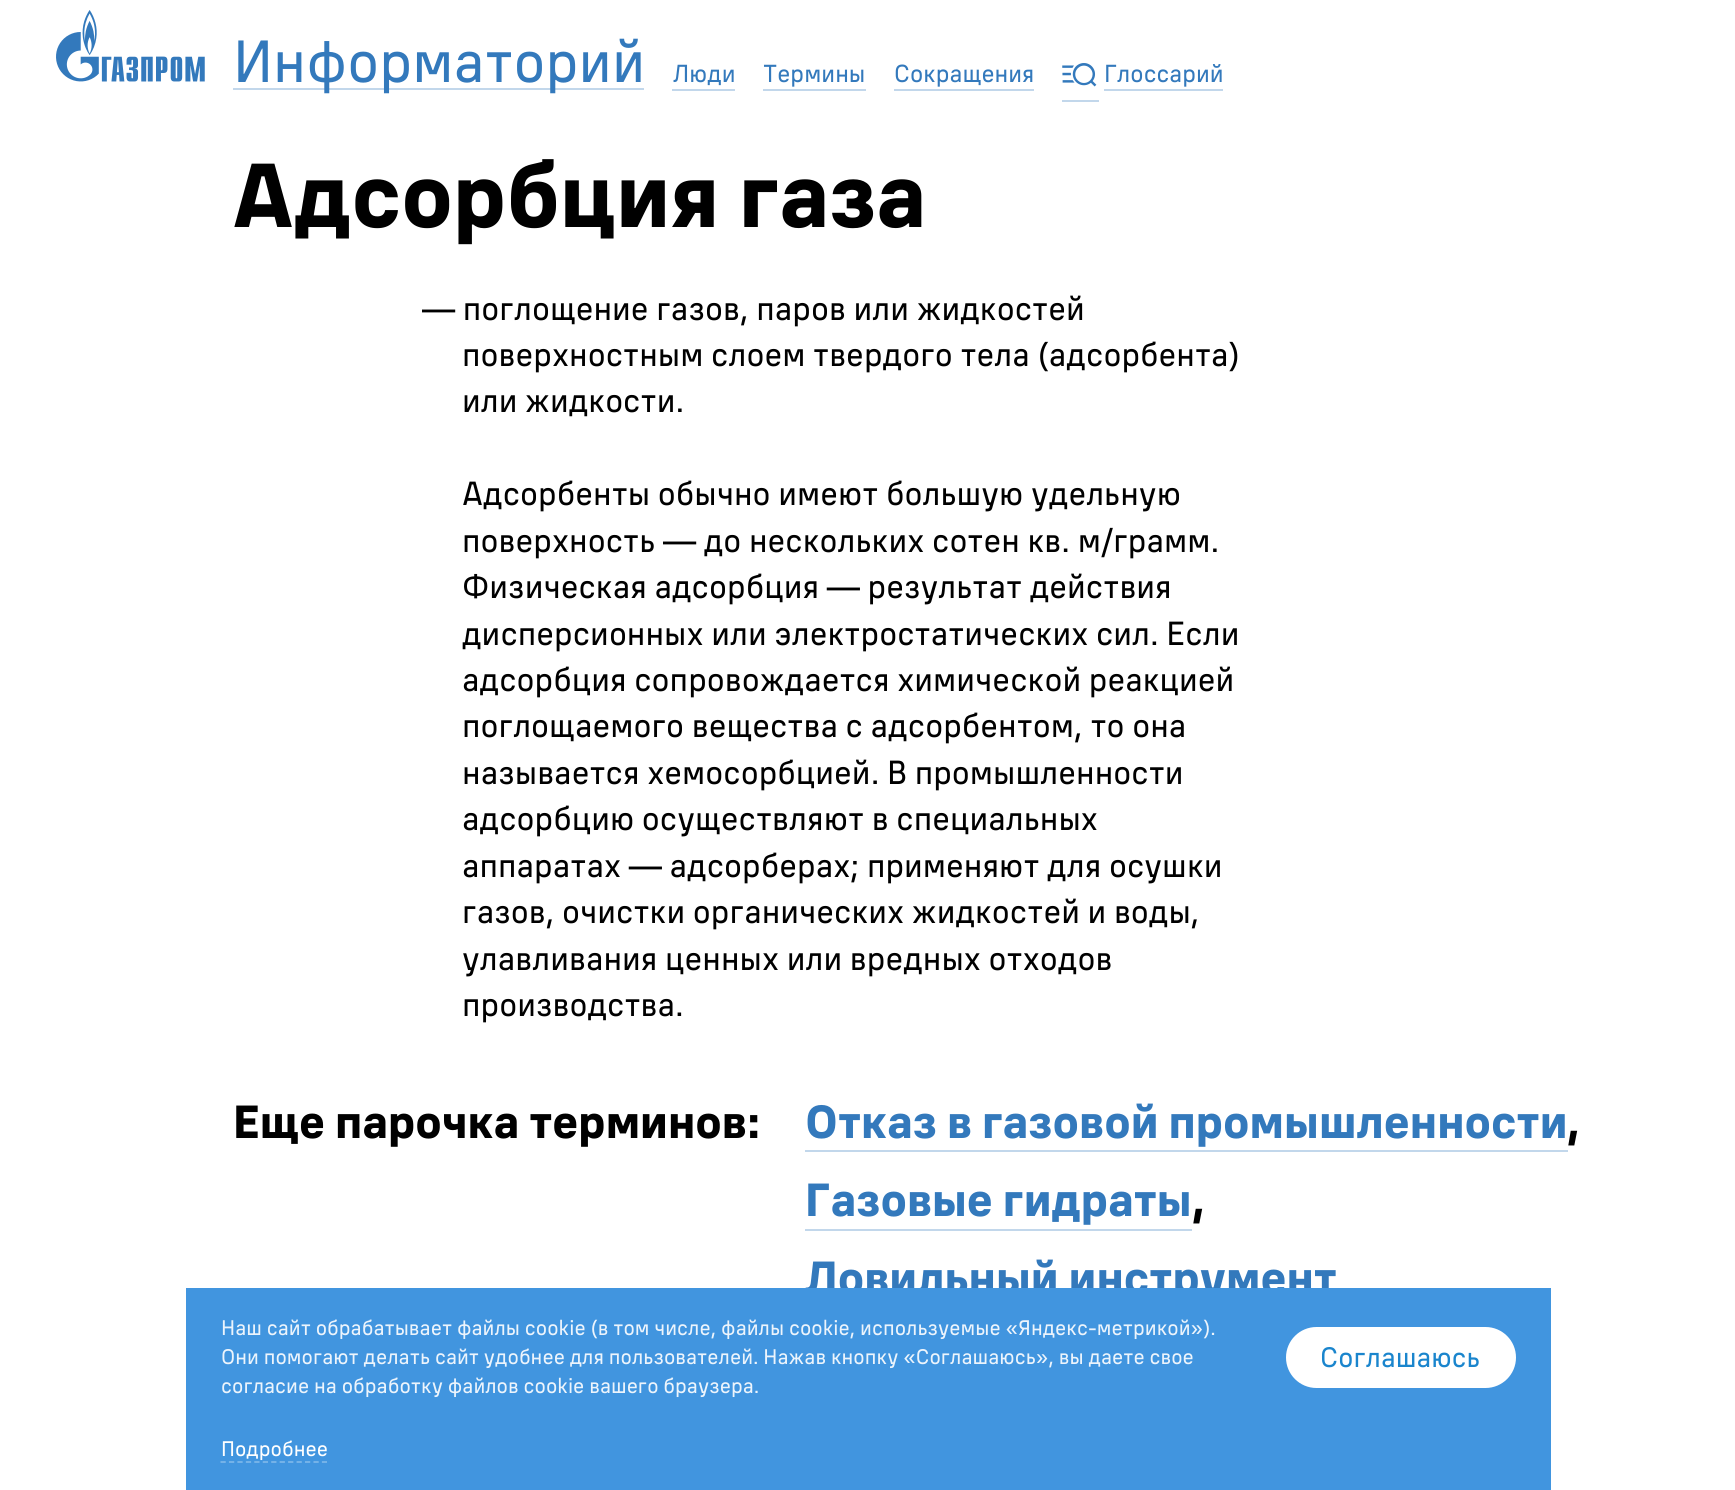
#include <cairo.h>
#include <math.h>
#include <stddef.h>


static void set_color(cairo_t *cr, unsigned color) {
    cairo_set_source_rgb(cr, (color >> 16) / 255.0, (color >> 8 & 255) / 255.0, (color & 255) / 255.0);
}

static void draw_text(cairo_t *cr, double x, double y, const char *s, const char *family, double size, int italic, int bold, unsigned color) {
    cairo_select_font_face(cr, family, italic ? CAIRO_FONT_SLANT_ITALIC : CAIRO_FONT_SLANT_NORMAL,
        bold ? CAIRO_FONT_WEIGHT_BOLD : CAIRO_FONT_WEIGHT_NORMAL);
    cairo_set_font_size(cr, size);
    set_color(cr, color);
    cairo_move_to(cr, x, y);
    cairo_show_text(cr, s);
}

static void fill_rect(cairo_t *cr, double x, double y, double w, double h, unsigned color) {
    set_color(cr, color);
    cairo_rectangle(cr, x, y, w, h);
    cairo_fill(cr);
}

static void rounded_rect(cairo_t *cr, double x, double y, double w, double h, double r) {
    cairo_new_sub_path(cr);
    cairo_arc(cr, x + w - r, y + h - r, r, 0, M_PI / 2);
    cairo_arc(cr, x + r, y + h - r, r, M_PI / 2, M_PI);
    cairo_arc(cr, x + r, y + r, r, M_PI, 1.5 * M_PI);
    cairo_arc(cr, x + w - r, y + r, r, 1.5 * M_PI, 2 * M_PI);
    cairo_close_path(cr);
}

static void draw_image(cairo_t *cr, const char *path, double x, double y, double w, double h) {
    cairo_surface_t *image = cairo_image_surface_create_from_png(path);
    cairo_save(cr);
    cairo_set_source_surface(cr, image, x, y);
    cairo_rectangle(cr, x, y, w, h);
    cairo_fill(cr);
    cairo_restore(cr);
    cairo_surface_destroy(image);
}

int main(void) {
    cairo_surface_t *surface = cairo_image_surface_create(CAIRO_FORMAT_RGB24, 1735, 1490);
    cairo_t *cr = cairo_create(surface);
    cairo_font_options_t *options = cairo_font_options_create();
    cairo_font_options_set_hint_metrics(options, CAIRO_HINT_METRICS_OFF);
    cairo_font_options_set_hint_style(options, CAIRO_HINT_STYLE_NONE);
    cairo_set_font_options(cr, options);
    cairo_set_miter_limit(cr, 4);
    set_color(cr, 0xFFFFFF);
    cairo_paint(cr);
    draw_image(cr, "assets/img1.png", 56, 10, 149, 72);
    fill_rect(cr, 233, 88, 411, 2, 0xC2D7EB);
    draw_text(cr, 233, 82, "Информаторий", "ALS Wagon", 59, 0, 0, 0x3379BC);
    draw_text(cr, 673, 82, "Люди", "ALS Wagon", 24.5, 0, 0, 0x3379BC);
    fill_rect(cr, 672, 89, 63, 2, 0xC2D7EB);
    draw_text(cr, 763, 82, "Термины", "ALS Wagon", 24.5, 0, 0, 0x3379BC);
    fill_rect(cr, 763, 89, 103, 2, 0xC2D7EB);
    draw_text(cr, 894, 82, "Сокращения", "ALS Wagon", 24.5, 0, 0, 0x3379BC);
    fill_rect(cr, 894, 89, 140, 2, 0xC2D7EB);
    fill_rect(cr, 1062, 100, 37, 2, 0xC2D7EB);
    fill_rect(cr, 1104, 89, 119, 2, 0xC2D7EB);
    draw_image(cr, "assets/img2.png", 1062, 63, 35, 24);
    draw_text(cr, 1104, 82, "Глоссарий", "ALS Wagon", 24.5, 0, 0, 0x3379BC);
    draw_text(cr, 232, 227, "Адсорбция газа", "ALS Wagon", 90, 0, 1, 0x000000);
    draw_text(cr, 422, 320, "— поглощение газов, паров или жидкостей", "ALS Wagon", 33.2, 0, 0, 0x000000);
    draw_text(cr, 462, 366, "поверхностным слоем твердого тела (адсорбента)", "ALS Wagon", 33.2, 0, 0, 0x000000);
    draw_text(cr, 462, 412, "или жидкости.", "ALS Wagon", 33.2, 0, 0, 0x000000);
    draw_text(cr, 462, 505, "Адсорбенты обычно имеют большую удельную", "ALS Wagon", 33.2, 0, 0, 0x000000);
    draw_text(cr, 462, 552, "поверхность — до нескольких сотен кв. м/грамм.", "ALS Wagon", 33.2, 0, 0, 0x000000);
    draw_text(cr, 462, 598, "Физическая адсорбция — результат действия", "ALS Wagon", 33.2, 0, 0, 0x000000);
    draw_text(cr, 462, 645, "дисперсионных или электростатических сил. Если", "ALS Wagon", 33.2, 0, 0, 0x000000);
    draw_text(cr, 462, 691, "адсорбция сопровождается химической реакцией", "ALS Wagon", 33.2, 0, 0, 0x000000);
    draw_text(cr, 462, 737, "поглощаемого вещества с адсорбентом, то она", "ALS Wagon", 33.2, 0, 0, 0x000000);
    draw_text(cr, 462, 784, "называется хемосорбцией. В промышленности", "ALS Wagon", 33.2, 0, 0, 0x000000);
    draw_text(cr, 462, 830, "адсорбцию осуществляют в специальных", "ALS Wagon", 33.2, 0, 0, 0x000000);
    draw_text(cr, 462, 877, "аппаратах — адсорберах; применяют для осушки", "ALS Wagon", 33.2, 0, 0, 0x000000);
    draw_text(cr, 462, 923, "газов, очистки органических жидкостей и воды,", "ALS Wagon", 33.2, 0, 0, 0x000000);
    draw_text(cr, 462, 970, "улавливания ценных или вредных отходов", "ALS Wagon", 33.2, 0, 0, 0x000000);
    draw_text(cr, 462, 1016, "производства.", "ALS Wagon", 33.2, 0, 0, 0x000000);
    draw_text(cr, 233, 1138, "Еще парочка терминов:", "ALS Wagon", 46.1, 0, 1, 0x000000);
    draw_text(cr, 805, 1138, "Отказ в газовой промышленности", "ALS Wagon", 46.1, 0, 1, 0x3379BC);
    fill_rect(cr, 805, 1150, 763, 2, 0xC2D7EB);
    draw_text(cr, 1567, 1138, ",", "ALS Wagon", 46.1, 0, 1, 0x000000);
    draw_text(cr, 805, 1216, "Газовые гидраты", "ALS Wagon", 46.1, 0, 1, 0x3379BC);
    fill_rect(cr, 805, 1229, 387, 2, 0xC2D7EB);
    draw_text(cr, 1192, 1216, ",", "ALS Wagon", 46.1, 0, 1, 0x000000);
    draw_text(cr, 805, 1294, "Ловильный инструмент", "ALS Wagon", 46.1, 0, 1, 0x3379BC);
    fill_rect(cr, 186, 1288, 1365, 202, 0x4195DF);
    draw_text(cr, 221, 1335, "Наш сайт обрабатывает файлы cookie (в том числе, файлы cookie, используемые «Яндекс-метрикой»).", "ALS Wagon", 21, 0, 0, 0xECF4FC);
    draw_text(cr, 221, 1364, "Они помогают делать сайт удобнее для пользователей. Нажав кнопку «Соглашаюсь», вы даете свое", "ALS Wagon", 21, 0, 0, 0xECF4FC);
    draw_text(cr, 221, 1393, "согласие на обработку файлов cookie вашего браузера.", "ALS Wagon", 21, 0, 0, 0xECF4FC);
    draw_text(cr, 221, 1456, "Подробнее", "ALS Wagon", 21, 0, 0, 0xFFFFFF);
    cairo_new_path(cr);
    cairo_move_to(cr, 220.5, 1462);
    cairo_line_to(cr, 327, 1462);
    set_color(cr, 0x7AB5E9);
    cairo_set_line_width(cr, 1.8);
    cairo_set_dash(cr, (double[]){5.25, 3.2}, 2, 0);
    cairo_stroke(cr);
    set_color(cr, 0xFFFFFF);
    rounded_rect(cr, 1286, 1327, 230, 61, 30.5);
    cairo_fill(cr);
    draw_text(cr, 1320, 1367, "Соглашаюсь", "ALS Wagon", 28, 0, 0, 0x1A85CD);
    cairo_surface_write_to_png(surface, "output.png");
    cairo_font_options_destroy(options);
    cairo_destroy(cr);
    cairo_surface_destroy(surface);
    return 0;
}
